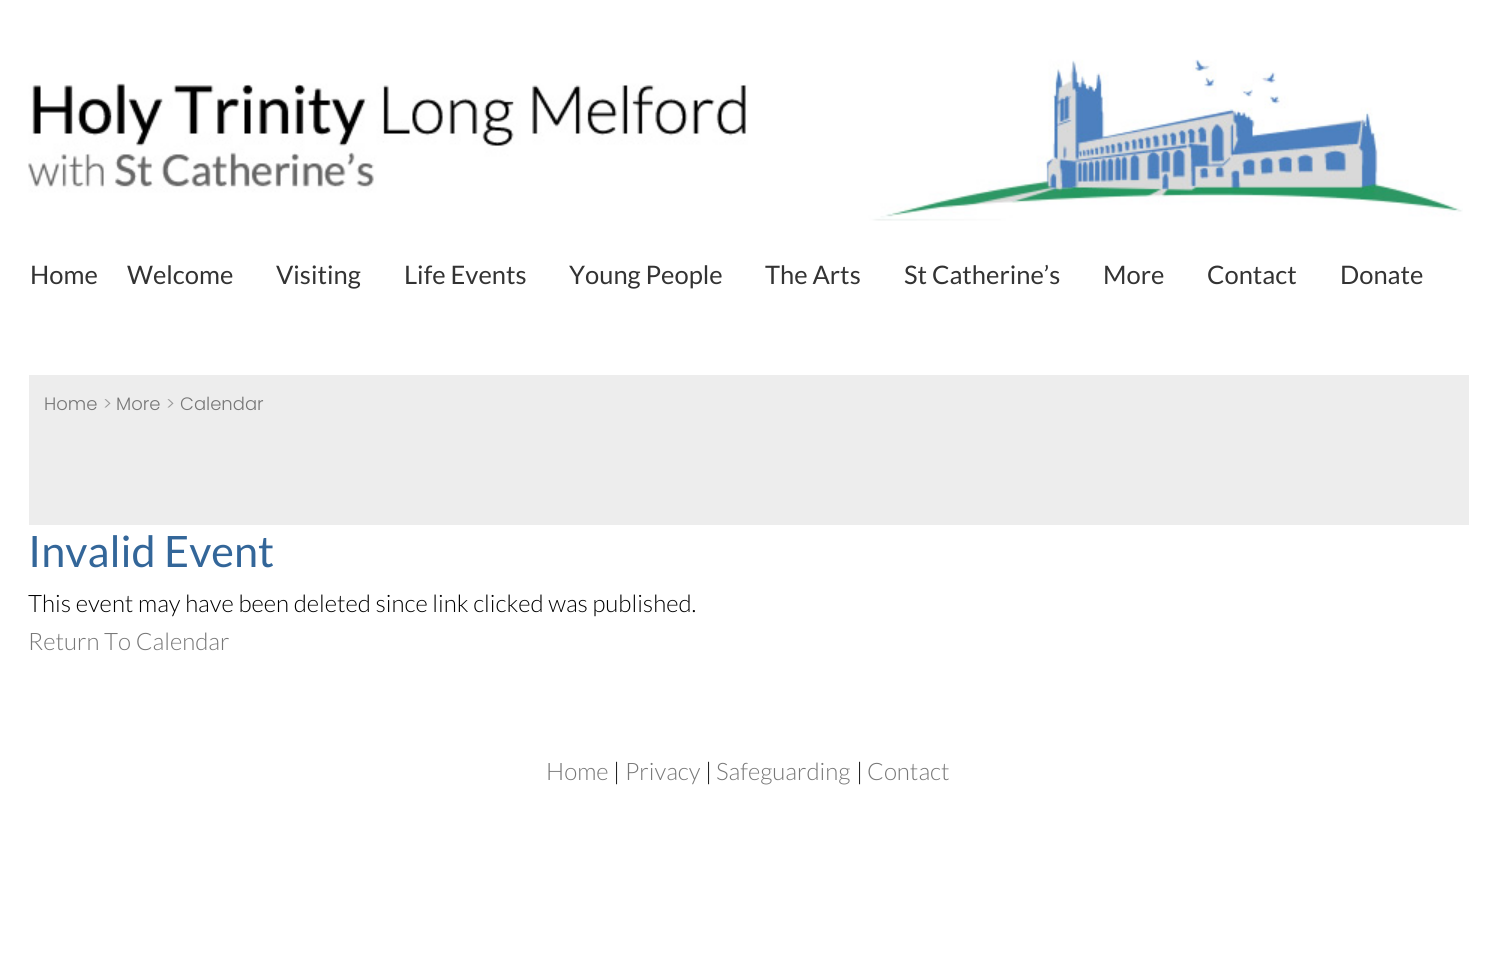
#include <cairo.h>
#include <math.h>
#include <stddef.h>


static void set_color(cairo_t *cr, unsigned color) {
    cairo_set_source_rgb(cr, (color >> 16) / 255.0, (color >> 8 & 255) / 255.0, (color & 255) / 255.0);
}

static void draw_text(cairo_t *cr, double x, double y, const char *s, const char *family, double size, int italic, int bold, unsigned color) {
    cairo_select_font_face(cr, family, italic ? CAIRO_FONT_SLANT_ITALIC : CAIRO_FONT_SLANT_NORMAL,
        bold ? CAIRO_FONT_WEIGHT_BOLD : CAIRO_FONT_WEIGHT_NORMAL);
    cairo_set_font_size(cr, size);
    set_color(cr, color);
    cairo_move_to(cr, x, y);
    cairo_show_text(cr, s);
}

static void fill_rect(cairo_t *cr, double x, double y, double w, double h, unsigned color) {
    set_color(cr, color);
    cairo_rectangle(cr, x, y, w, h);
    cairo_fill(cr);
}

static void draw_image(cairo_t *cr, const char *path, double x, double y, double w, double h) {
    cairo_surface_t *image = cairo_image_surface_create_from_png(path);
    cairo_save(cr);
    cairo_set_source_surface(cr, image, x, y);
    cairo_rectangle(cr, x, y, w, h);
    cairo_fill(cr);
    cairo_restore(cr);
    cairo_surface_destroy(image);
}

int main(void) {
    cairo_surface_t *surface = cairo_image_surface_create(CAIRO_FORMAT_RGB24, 1495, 976);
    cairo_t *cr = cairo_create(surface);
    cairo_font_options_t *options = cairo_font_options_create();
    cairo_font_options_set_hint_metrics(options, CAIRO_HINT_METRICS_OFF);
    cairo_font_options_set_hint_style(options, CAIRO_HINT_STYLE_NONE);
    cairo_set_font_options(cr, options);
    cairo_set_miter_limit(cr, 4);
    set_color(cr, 0xFFFFFF);
    cairo_paint(cr);
    draw_image(cr, "assets/img1.png", 28, 59, 1435, 162);
    draw_text(cr, 30, 284, "Home", "Lato", 25.5, 0, 0, 0x333333);
    draw_text(cr, 127, 284, "Welcome", "Lato", 25.5, 0, 0, 0x333333);
    draw_text(cr, 276, 284, "Visiting", "Lato", 25.5, 0, 0, 0x333333);
    draw_text(cr, 404, 284, "Life Events", "Lato", 25.5, 0, 0, 0x333333);
    draw_text(cr, 569, 284, "Young People", "Lato", 25.5, 0, 0, 0x333333);
    draw_text(cr, 765, 284, "The Arts", "Lato", 25.5, 0, 0, 0x333333);
    draw_text(cr, 904, 284, "St Catherine’s", "Lato", 25.5, 0, 0, 0x333333);
    draw_text(cr, 1103, 284, "More", "Lato", 25.5, 0, 0, 0x333333);
    draw_text(cr, 1207, 284, "Contact", "Lato", 25.5, 0, 0, 0x333333);
    draw_text(cr, 1340, 284, "Donate", "Lato", 25.5, 0, 0, 0x333333);
    fill_rect(cr, 29, 375, 1440, 150, 0xEDEDED);
    draw_text(cr, 44, 410, "Home", "Poppins Light", 18, 0, 0, 0x777777);
    draw_text(cr, 103, 410, ">", "Poppins Light", 18, 0, 0, 0x999999);
    draw_text(cr, 116, 410, "More", "Poppins Light", 18, 0, 0, 0x777777);
    draw_text(cr, 166, 410, ">", "Poppins Light", 18, 0, 0, 0x999999);
    draw_text(cr, 180, 410, "Calendar", "Poppins Light", 18, 0, 0, 0x777777);
    draw_text(cr, 28, 567, "Invalid Event", "Lato", 43.25, 0, 0, 0x336699);
    draw_text(cr, 28, 612, "This event may have been deleted since link clicked was published.", "Lato Light", 24, 0, 0, 0x000000);
    draw_text(cr, 28, 650, "Return To Calendar", "Lato Light", 24, 0, 0, 0x777777);
    draw_text(cr, 546, 780, "Home", "Lato Light", 24, 0, 0, 0x777777);
    draw_text(cr, 613, 780, "|", "Lato Light", 24, 0, 0, 0x000000);
    draw_text(cr, 625, 780, "Privacy", "Lato Light", 24, 0, 0, 0x777777);
    draw_text(cr, 705, 780, "|", "Lato Light", 24, 0, 0, 0x000000);
    draw_text(cr, 716, 780, "Safeguarding", "Lato Light", 24, 0, 0, 0x777777);
    draw_text(cr, 856, 780, "|", "Lato Light", 24, 0, 0, 0x000000);
    draw_text(cr, 867, 780, "Contact", "Lato Light", 24, 0, 0, 0x777777);
    cairo_surface_write_to_png(surface, "output.png");
    cairo_font_options_destroy(options);
    cairo_destroy(cr);
    cairo_surface_destroy(surface);
    return 0;
}
